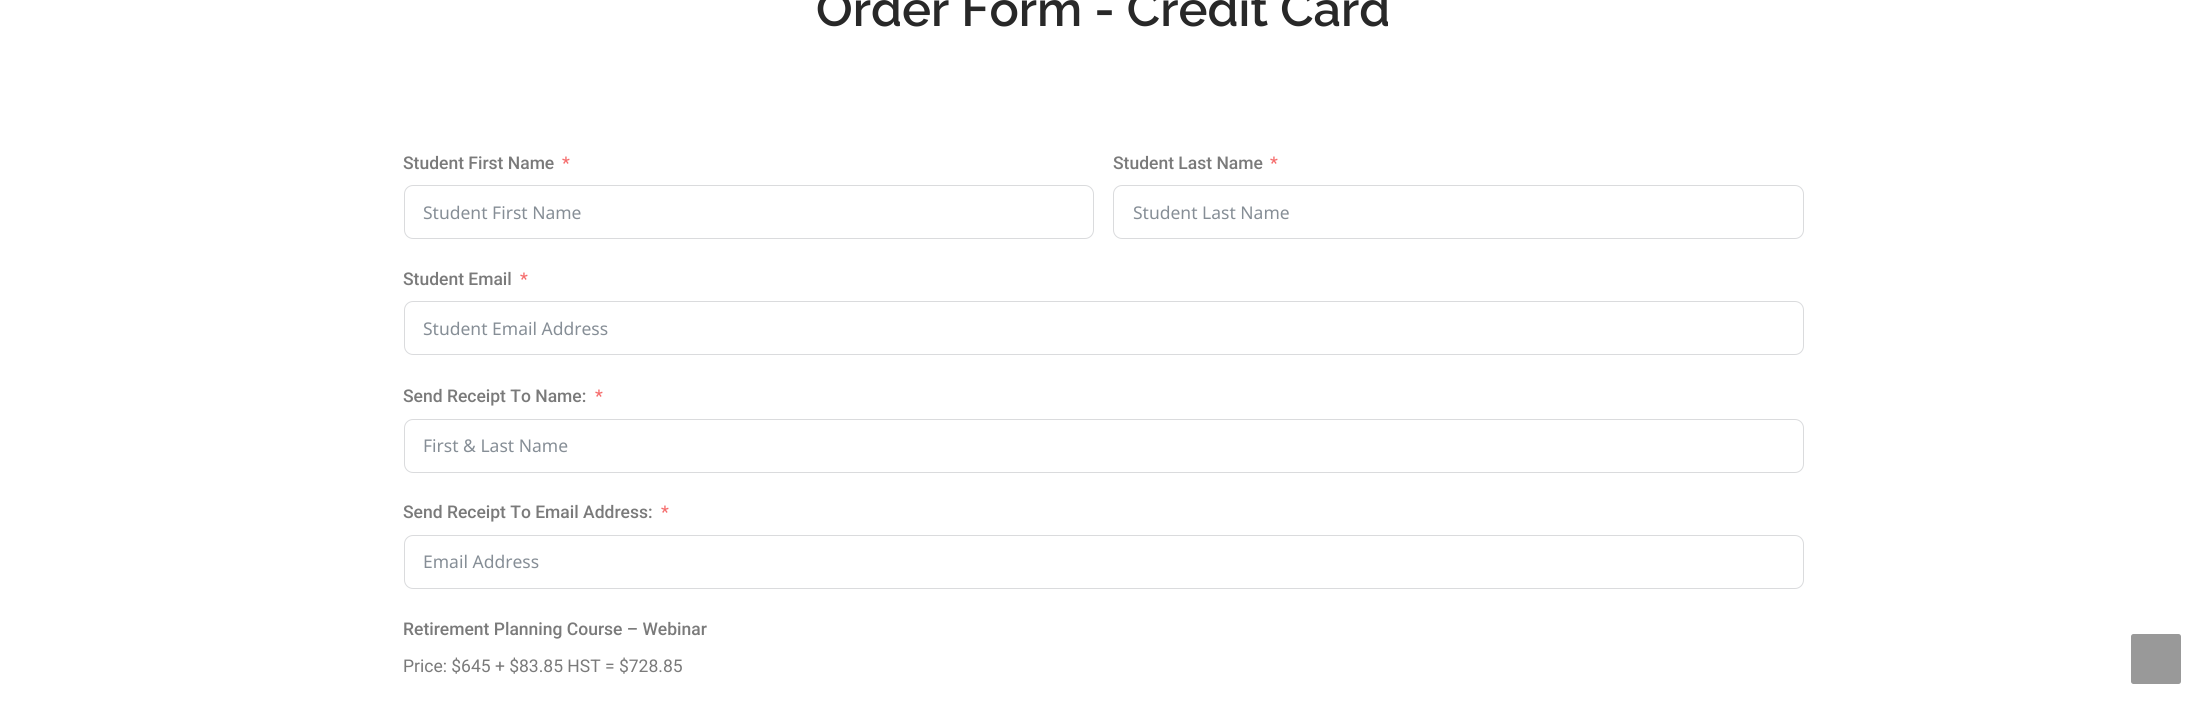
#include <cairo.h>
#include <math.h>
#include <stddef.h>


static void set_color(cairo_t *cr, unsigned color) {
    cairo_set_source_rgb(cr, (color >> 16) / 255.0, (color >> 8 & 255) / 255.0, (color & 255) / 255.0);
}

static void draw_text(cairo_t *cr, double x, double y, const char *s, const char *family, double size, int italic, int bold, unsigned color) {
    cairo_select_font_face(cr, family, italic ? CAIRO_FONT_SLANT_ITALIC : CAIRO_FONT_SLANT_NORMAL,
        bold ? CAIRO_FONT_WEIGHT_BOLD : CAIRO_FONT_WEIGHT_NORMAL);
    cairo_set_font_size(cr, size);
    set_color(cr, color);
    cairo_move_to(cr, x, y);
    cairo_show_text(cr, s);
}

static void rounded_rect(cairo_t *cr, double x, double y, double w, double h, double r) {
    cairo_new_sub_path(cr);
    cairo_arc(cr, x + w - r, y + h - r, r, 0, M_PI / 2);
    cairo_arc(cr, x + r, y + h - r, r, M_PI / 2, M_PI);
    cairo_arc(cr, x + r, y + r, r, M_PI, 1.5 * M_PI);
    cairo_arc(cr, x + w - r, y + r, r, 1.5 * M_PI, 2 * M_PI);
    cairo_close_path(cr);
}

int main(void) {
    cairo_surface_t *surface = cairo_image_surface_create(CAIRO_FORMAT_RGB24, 2206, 708);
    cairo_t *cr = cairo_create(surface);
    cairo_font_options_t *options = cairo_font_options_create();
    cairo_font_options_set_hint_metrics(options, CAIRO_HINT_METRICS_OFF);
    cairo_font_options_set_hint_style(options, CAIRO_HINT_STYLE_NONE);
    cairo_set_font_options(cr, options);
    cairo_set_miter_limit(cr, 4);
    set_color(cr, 0xFFFFFF);
    cairo_paint(cr);
    draw_text(cr, 816, 26, "Order Form - Credit Card", "Raleway SemiBold", 48.75, 0, 0, 0x282828);
    draw_text(cr, 403, 169, "Student First Name", "Roboto Medium", 17.5, 0, 0, 0x7A7A7A);
    draw_text(cr, 562, 169, "*", "Roboto Medium", 17.5, 0, 0, 0xF56C6C);
    rounded_rect(cr, 404.5, 185.5, 689, 53, 8.5);
    set_color(cr, 0xDADBDD);
    cairo_set_line_width(cr, 1);
    cairo_stroke(cr);
    draw_text(cr, 423, 219, "Student First Name", "Noto Sans", 17.5, 0, 0, 0x868E96);
    draw_text(cr, 1113, 169, "Student Last Name", "Roboto Medium", 17.5, 0, 0, 0x7A7A7A);
    draw_text(cr, 1270, 169, "*", "Roboto Medium", 17.5, 0, 0, 0xF56C6C);
    rounded_rect(cr, 1113.5, 185.5, 690, 53, 8.5);
    set_color(cr, 0xDADBDD);
    cairo_stroke(cr);
    draw_text(cr, 1133, 219, "Student Last Name", "Noto Sans", 17.5, 0, 0, 0x868E96);
    draw_text(cr, 403, 285, "Student Email", "Roboto Medium", 17.5, 0, 0, 0x7A7A7A);
    draw_text(cr, 520, 285, "*", "Roboto Medium", 17.5, 0, 0, 0xF56C6C);
    rounded_rect(cr, 404.5, 301.5, 1399, 53, 8.5);
    set_color(cr, 0xDADBDD);
    cairo_stroke(cr);
    draw_text(cr, 423, 335, "Student Email Address", "Noto Sans", 17.5, 0, 0, 0x868E96);
    draw_text(cr, 403, 402, "Send Receipt To Name:", "Roboto Medium", 17.5, 0, 0, 0x7A7A7A);
    draw_text(cr, 595, 402, "*", "Roboto Medium", 17.5, 0, 0, 0xF56C6C);
    rounded_rect(cr, 404.5, 419.5, 1399, 53, 8.5);
    set_color(cr, 0xDADBDD);
    cairo_stroke(cr);
    draw_text(cr, 423, 452, "First & Last Name", "Noto Sans", 17.5, 0, 0, 0x868E96);
    draw_text(cr, 403, 518, "Send Receipt To Email Address:", "Roboto Medium", 17.5, 0, 0, 0x7A7A7A);
    draw_text(cr, 661, 518, "*", "Roboto Medium", 17.5, 0, 0, 0xF56C6C);
    rounded_rect(cr, 404.5, 535.5, 1399, 53, 8.5);
    set_color(cr, 0xDADBDD);
    cairo_stroke(cr);
    draw_text(cr, 423, 568, "Email Address", "Noto Sans", 17.5, 0, 0, 0x868E96);
    draw_text(cr, 403, 635, "Retirement Planning Course – Webinar", "Roboto Medium", 17.5, 0, 0, 0x7A7A7A);
    draw_text(cr, 403, 672, "Price: $645 + $83.85 HST = $728.85", "Roboto", 17.5, 0, 0, 0x7A7A7A);
    set_color(cr, 0x999999);
    rounded_rect(cr, 2131, 634, 50, 50, 2.5);
    cairo_fill(cr);
    cairo_surface_write_to_png(surface, "output.png");
    cairo_font_options_destroy(options);
    cairo_destroy(cr);
    cairo_surface_destroy(surface);
    return 0;
}
